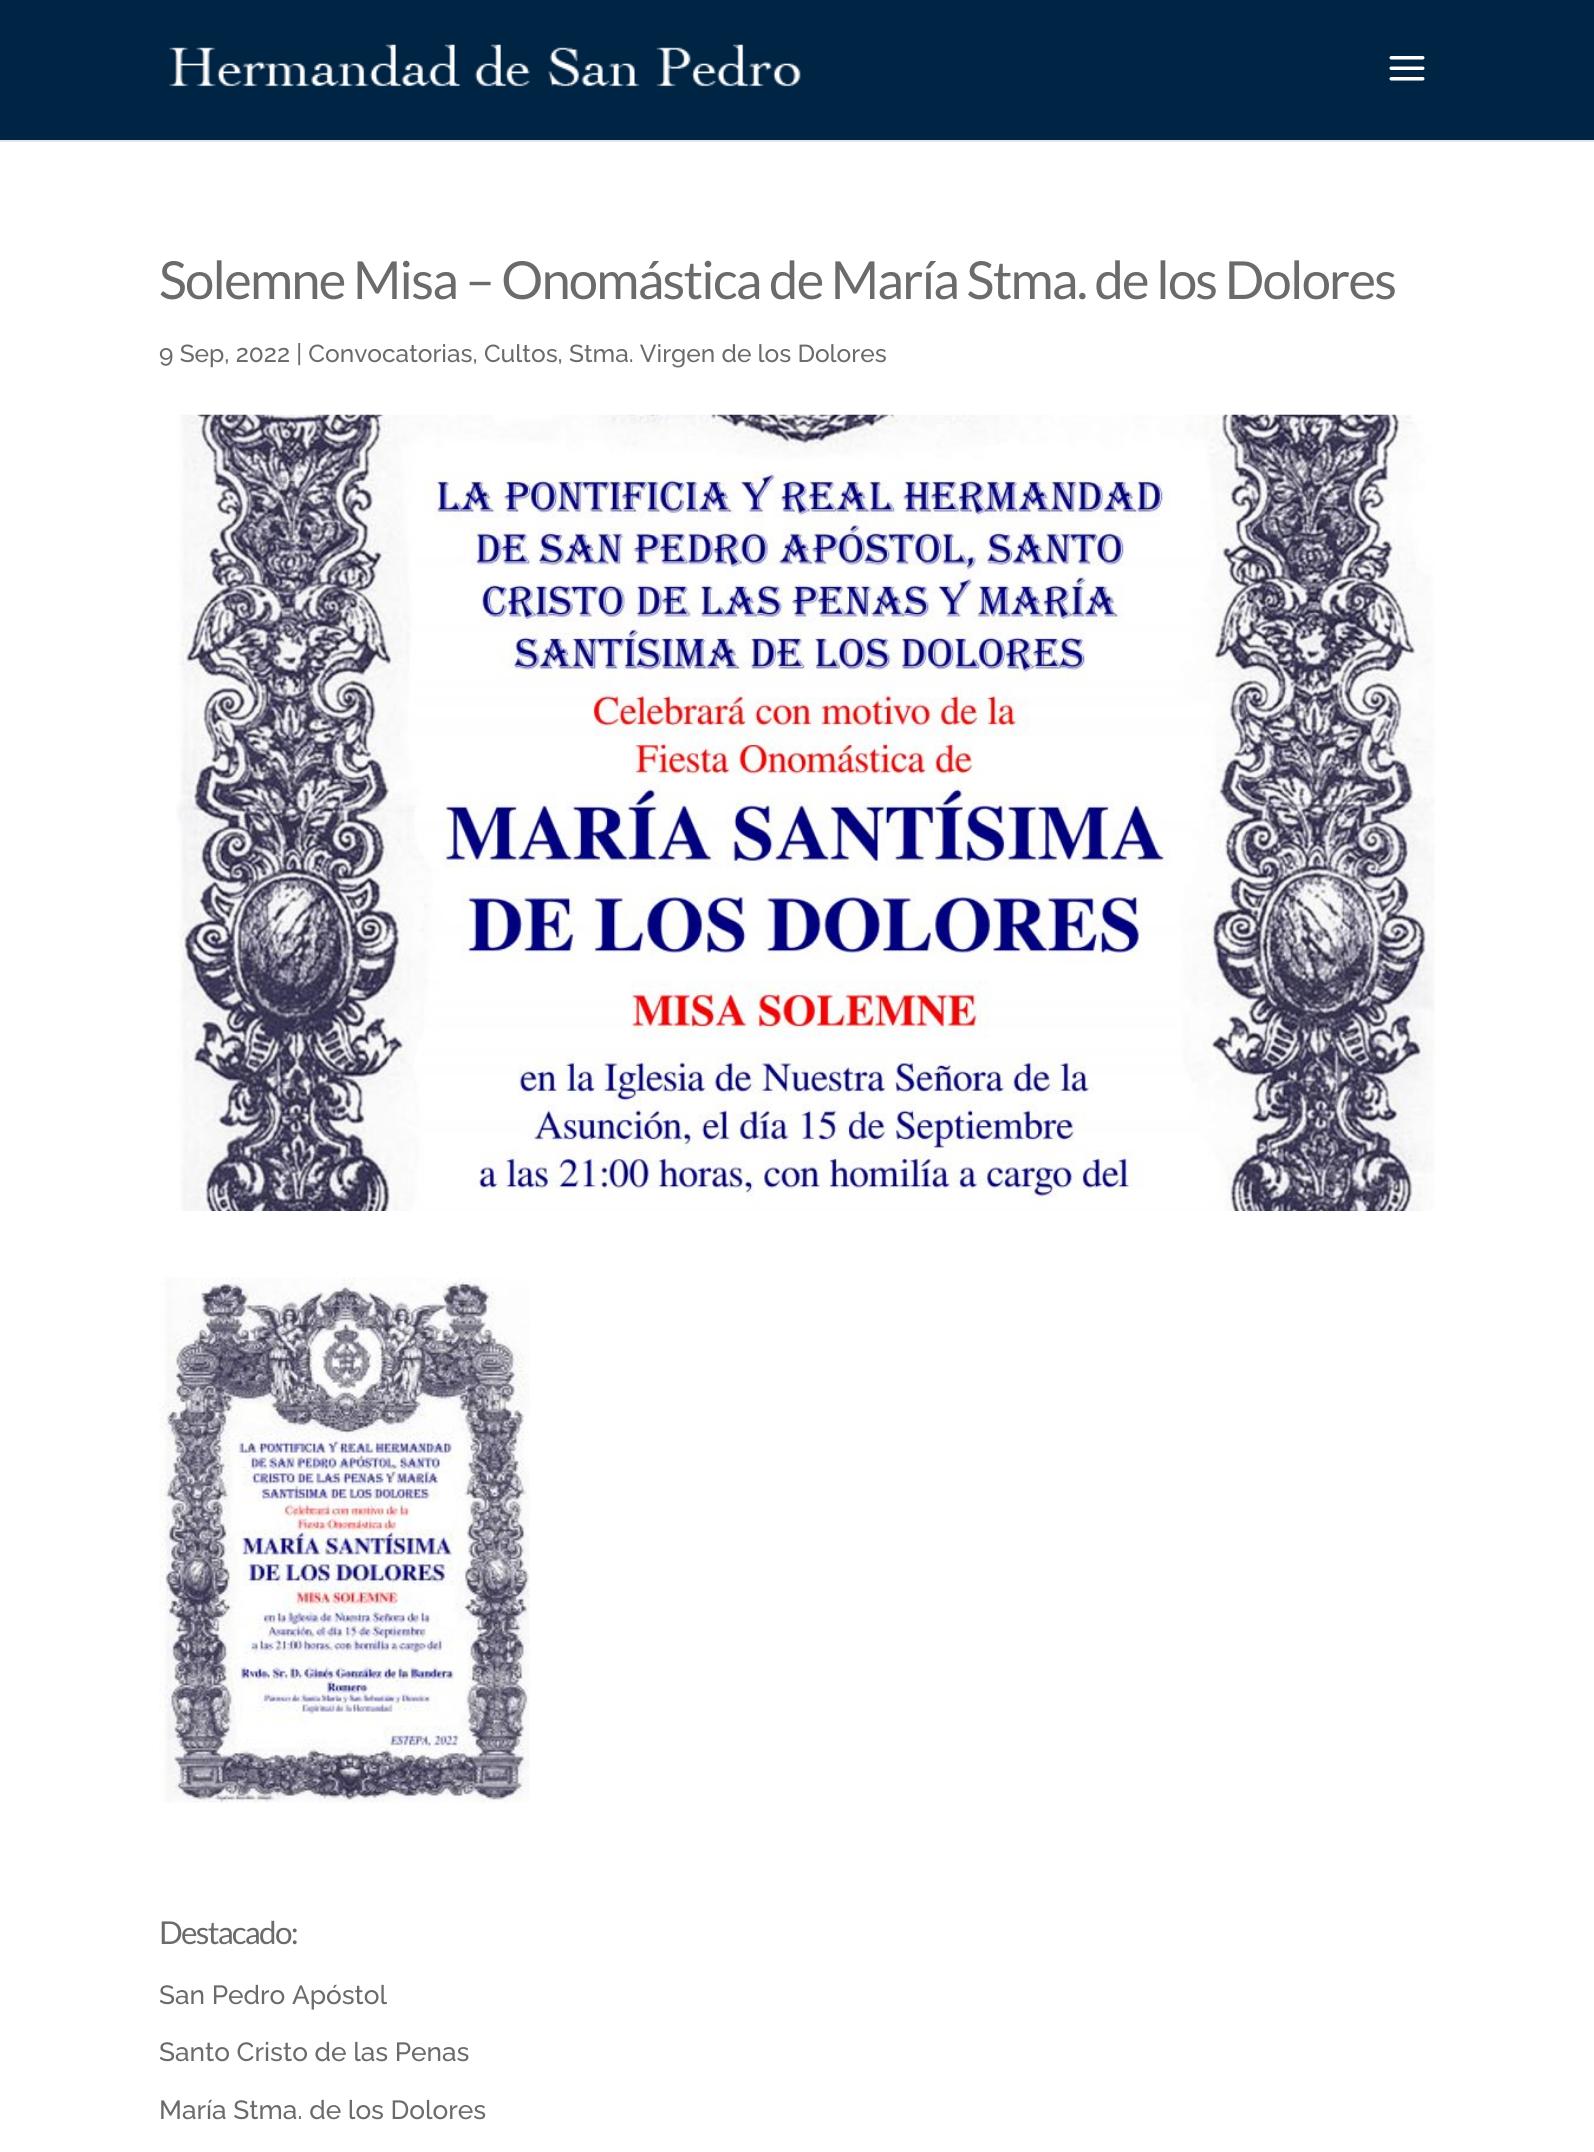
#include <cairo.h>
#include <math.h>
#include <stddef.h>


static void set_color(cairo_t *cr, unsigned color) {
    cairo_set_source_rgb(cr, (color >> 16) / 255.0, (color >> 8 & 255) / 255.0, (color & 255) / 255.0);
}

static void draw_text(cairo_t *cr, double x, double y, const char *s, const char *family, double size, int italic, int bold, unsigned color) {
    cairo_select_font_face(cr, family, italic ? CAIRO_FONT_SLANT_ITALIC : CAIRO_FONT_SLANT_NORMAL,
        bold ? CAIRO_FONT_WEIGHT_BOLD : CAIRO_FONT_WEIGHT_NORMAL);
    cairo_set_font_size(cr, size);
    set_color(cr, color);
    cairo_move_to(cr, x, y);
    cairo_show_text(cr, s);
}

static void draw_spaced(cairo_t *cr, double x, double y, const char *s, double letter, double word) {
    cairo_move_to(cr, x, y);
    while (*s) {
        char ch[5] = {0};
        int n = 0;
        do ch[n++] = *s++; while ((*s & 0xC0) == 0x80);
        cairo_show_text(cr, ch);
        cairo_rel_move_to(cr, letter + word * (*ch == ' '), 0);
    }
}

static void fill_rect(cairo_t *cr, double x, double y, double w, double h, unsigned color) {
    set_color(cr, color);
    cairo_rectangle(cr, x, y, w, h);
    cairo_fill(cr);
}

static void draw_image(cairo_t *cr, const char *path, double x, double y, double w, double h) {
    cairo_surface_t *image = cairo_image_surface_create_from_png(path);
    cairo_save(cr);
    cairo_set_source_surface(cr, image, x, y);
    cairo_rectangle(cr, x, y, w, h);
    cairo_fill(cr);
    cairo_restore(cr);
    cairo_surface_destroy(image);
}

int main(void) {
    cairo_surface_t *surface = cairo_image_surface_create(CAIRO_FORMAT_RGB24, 1594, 2152);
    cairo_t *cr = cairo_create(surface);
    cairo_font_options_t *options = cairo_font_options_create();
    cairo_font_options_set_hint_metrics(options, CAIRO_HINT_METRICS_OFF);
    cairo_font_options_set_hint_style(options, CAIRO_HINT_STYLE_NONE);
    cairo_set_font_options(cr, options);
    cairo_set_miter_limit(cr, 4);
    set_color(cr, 0xFFFFFF);
    cairo_paint(cr);
    fill_rect(cr, 0, 140, 1594, 2, 0xE6E6E6);
    fill_rect(cr, 0, 0, 1594, 140, 0x002444);
    draw_image(cr, "assets/img1.png", 169, 44, 632, 43);
    draw_image(cr, "assets/img2.png", 1389, 56, 36, 25);
    cairo_select_font_face(cr, "Lato", CAIRO_FONT_SLANT_NORMAL, CAIRO_FONT_WEIGHT_NORMAL);
    cairo_set_font_size(cr, 52.5);
    set_color(cr, 0x6B6B6B);
    draw_spaced(cr, 159, 299, "Solemne Misa – Onomástica de María Stma. de los Dolores", -1.75, 0);
    draw_text(cr, 159, 362, "9 Sep, 2022 | Convocatorias, Cultos, Stma. Virgen de los Dolores", "Raleway Medium", 24.5, 0, 0, 0x6B6B6B);
    draw_image(cr, "assets/img3.png", 176, 414, 1259, 797);
    draw_image(cr, "assets/img4.png", 159, 1277, 371, 526);
    cairo_select_font_face(cr, "Lato", CAIRO_FONT_SLANT_NORMAL, CAIRO_FONT_WEIGHT_NORMAL);
    cairo_set_font_size(cr, 31.5);
    draw_spaced(cr, 159, 1944, "Destacado:", -1.75, 0);
    draw_text(cr, 159, 2004, "San Pedro Apóstol", "Raleway Medium", 26.25, 0, 0, 0x6B6B6B);
    draw_text(cr, 159, 2061, "Santo Cristo de las Penas", "Raleway Medium", 26.25, 0, 0, 0x6B6B6B);
    draw_text(cr, 159, 2119, "María Stma. de los Dolores", "Raleway Medium", 26.25, 0, 0, 0x6B6B6B);
    cairo_surface_write_to_png(surface, "output.png");
    cairo_font_options_destroy(options);
    cairo_destroy(cr);
    cairo_surface_destroy(surface);
    return 0;
}
